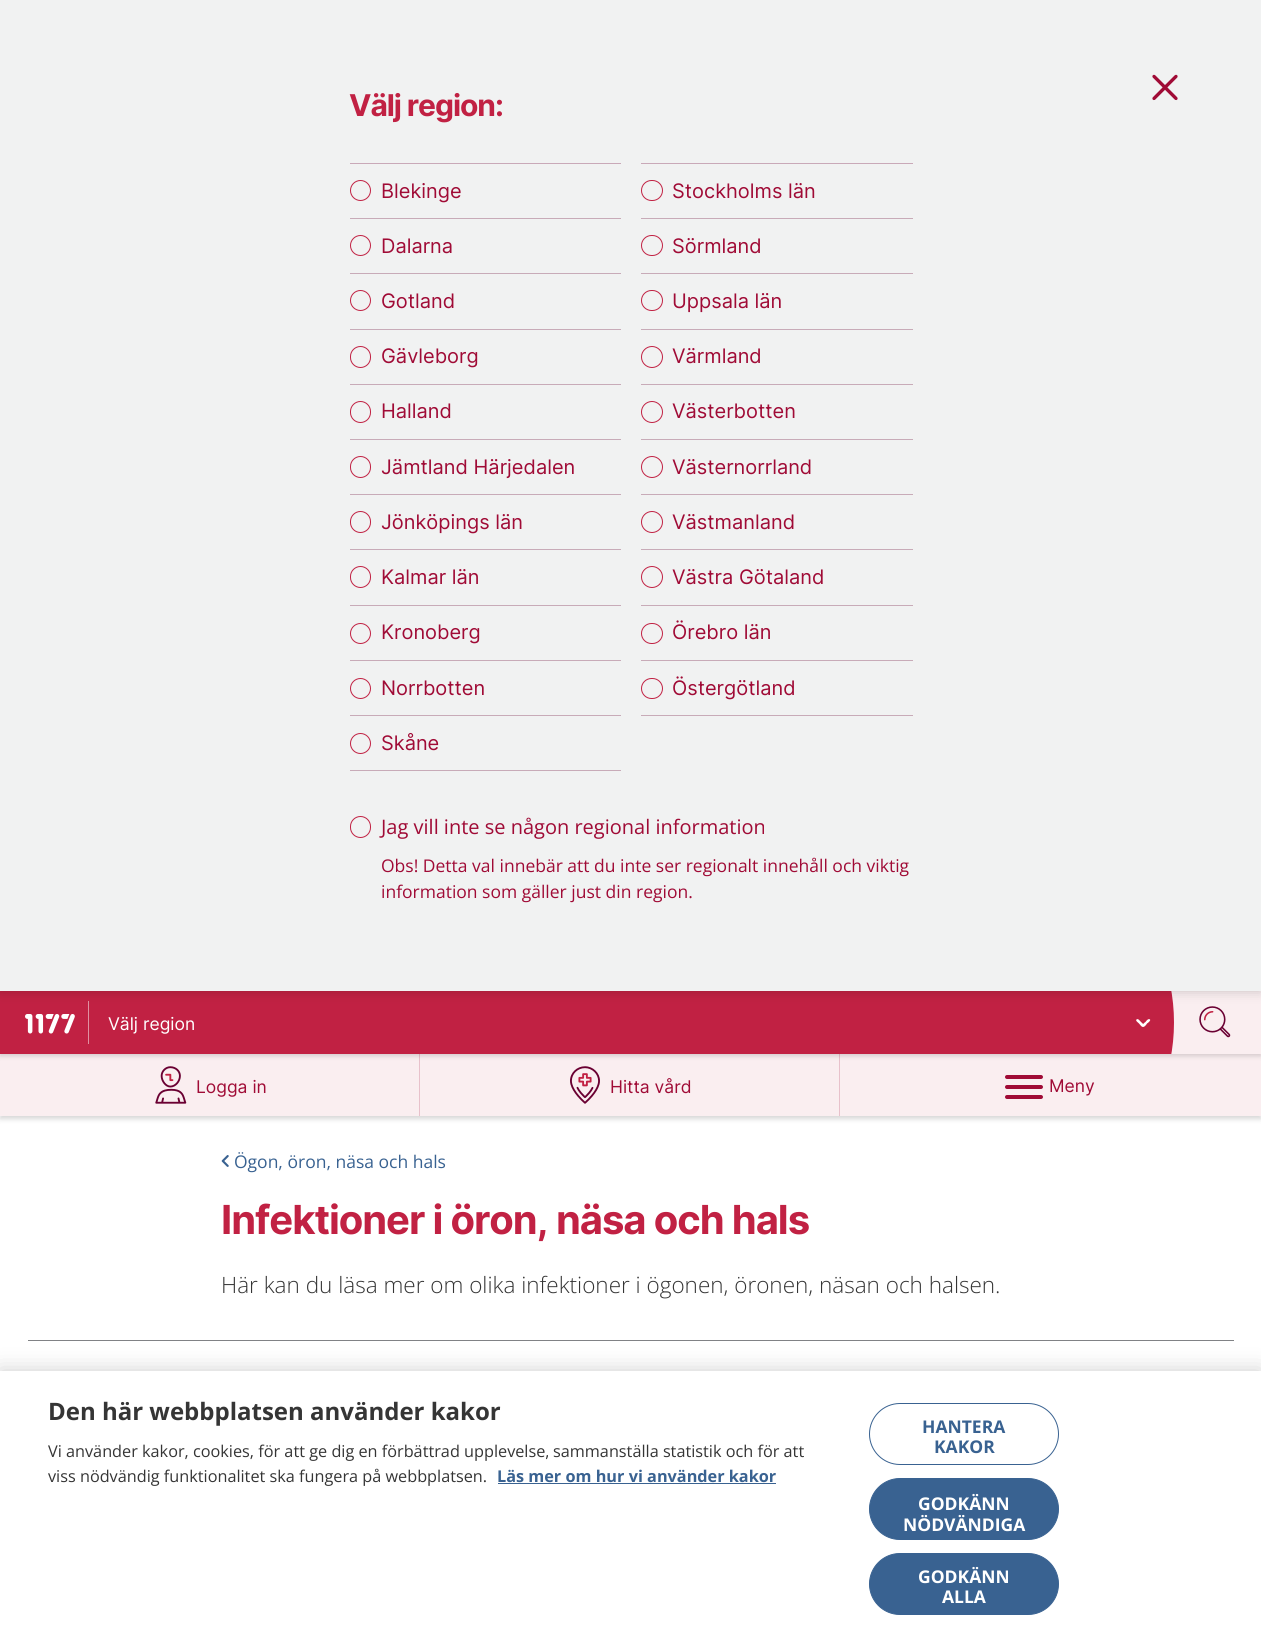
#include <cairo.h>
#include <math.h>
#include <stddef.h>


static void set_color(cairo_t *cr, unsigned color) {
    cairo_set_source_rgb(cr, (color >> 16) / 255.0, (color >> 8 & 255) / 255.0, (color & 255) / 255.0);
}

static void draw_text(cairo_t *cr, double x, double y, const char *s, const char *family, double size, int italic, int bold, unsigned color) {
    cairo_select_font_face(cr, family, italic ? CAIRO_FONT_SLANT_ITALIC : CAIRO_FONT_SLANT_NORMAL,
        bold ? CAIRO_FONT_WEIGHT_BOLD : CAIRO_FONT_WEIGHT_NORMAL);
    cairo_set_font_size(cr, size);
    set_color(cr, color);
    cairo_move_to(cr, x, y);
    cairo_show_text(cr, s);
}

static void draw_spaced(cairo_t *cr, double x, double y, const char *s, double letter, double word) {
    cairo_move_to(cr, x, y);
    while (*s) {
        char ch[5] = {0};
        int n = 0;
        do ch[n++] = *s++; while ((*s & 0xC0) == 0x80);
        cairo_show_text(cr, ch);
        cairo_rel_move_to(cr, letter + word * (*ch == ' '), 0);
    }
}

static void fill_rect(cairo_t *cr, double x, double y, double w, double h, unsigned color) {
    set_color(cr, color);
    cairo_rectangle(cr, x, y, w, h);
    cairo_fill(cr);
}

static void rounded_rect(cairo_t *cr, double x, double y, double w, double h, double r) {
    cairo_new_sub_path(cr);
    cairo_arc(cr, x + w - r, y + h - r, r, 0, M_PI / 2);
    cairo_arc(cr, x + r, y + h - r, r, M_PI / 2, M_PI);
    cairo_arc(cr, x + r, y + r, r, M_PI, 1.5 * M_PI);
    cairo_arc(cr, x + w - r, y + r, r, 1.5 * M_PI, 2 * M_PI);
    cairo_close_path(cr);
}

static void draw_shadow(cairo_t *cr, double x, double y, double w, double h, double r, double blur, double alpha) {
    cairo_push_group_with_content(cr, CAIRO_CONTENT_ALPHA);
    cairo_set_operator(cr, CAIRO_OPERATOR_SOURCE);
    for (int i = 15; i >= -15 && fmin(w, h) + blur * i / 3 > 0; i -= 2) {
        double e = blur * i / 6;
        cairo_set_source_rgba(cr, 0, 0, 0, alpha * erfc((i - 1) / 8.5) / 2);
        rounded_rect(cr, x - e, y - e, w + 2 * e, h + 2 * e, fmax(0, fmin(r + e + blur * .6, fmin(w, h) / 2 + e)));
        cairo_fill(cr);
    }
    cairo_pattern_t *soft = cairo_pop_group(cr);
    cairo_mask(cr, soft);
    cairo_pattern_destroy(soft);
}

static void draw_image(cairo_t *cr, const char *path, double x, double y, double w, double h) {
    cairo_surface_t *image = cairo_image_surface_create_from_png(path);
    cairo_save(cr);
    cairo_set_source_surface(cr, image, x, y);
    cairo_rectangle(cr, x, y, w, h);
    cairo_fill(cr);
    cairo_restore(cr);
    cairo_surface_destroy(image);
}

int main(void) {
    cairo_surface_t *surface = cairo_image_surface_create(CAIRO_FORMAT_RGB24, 1261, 1640);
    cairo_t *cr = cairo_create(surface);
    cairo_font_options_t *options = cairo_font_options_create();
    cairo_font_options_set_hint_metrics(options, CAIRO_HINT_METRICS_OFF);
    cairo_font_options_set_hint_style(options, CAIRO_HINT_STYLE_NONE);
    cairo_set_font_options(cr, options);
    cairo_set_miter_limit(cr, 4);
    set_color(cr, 0xFFFFFF);
    cairo_paint(cr);
    set_color(cr, 0x353535);
    draw_shadow(cr, 0, 994, 1261, 125, 0, 2.5, 0.2);
    fill_rect(cr, 0, 1054, 1261, 62, 0xFAEEF0);
    fill_rect(cr, 419, 1054, 1, 62, 0xE8C1CB);
    fill_rect(cr, 839, 1054, 1, 62, 0xE8C1CB);
    set_color(cr, 0x353535);
    draw_shadow(cr, 0, 994, 1261, 62, 0, 2.5, 0.2);
    fill_rect(cr, 1171, 991, 90, 63, 0xFAEEF0);
    fill_rect(cr, 0, 991, 1161, 63, 0xC12143);
    fill_rect(cr, 88, 1001, 1, 43, 0xE090A1);
    set_color(cr, 0xA00B36);
    rounded_rect(cr, 1005, 1085, 38, 4, 2);
    cairo_fill(cr);
    rounded_rect(cr, 1005, 1075, 38, 4, 2);
    cairo_fill(cr);
    rounded_rect(cr, 1005, 1095, 38, 4, 2);
    cairo_fill(cr);
    draw_text(cr, 1049, 1092, "Meny", "Inter", 17.5, 0, 0, 0xA00B36);
    cairo_save(cr);
    cairo_rectangle(cr, 1161, 991, 13, 63);
    cairo_clip(cr);
    set_color(cr, 0xC12143);
    cairo_arc(cr, 986.5, 1022.5, 187.5, 0, 2 * M_PI);
    cairo_fill(cr);
    cairo_restore(cr);
    draw_image(cr, "assets/img3.png", 1199, 1006, 32, 32);
    set_color(cr, 0x000000);
    draw_shadow(cr, 0, 0, 1261, 991, 0, 6, 0.2);
    fill_rect(cr, 0, 0, 1261, 991, 0xF1F2F2);
    draw_image(cr, "assets/img1.png", 1152, 74, 26, 27);
    cairo_select_font_face(cr, "Inter", CAIRO_FONT_SLANT_NORMAL, CAIRO_FONT_WEIGHT_BOLD);
    cairo_set_font_size(cr, 30);
    set_color(cr, 0xC12143);
    draw_spaced(cr, 349, 116, "Välj region:", -1.05, 0);
    fill_rect(cr, 350, 163, 271, 1, 0xC9A9B8);
    fill_rect(cr, 350, 218, 271, 1, 0xC8ABB8);
    cairo_new_path(cr);
    cairo_arc(cr, 360.5, 190.5, 10, 0, 2 * M_PI);
    set_color(cr, 0xC12143);
    cairo_set_line_width(cr, 1);
    cairo_stroke(cr);
    draw_text(cr, 381, 198, "Blekinge", "Inter", 20, 0, 0, 0xA00B36);
    fill_rect(cr, 641, 163, 272, 1, 0xC9A9B8);
    fill_rect(cr, 641, 218, 272, 1, 0xC8ABB8);
    rounded_rect(cr, 641.5, 180.5, 21, 20, 10);
    set_color(cr, 0xC12143);
    cairo_stroke(cr);
    draw_text(cr, 672, 198, "Stockholms län", "Inter", 20, 0, 0, 0xA00B36);
    fill_rect(cr, 350, 273, 271, 1, 0xC8ABB8);
    cairo_new_path(cr);
    cairo_arc(cr, 360.5, 245.5, 10, 0, 2 * M_PI);
    set_color(cr, 0xC12143);
    cairo_stroke(cr);
    draw_text(cr, 381, 253, "Dalarna", "Inter", 20, 0, 0, 0xA00B36);
    fill_rect(cr, 641, 273, 272, 1, 0xC8ABB8);
    rounded_rect(cr, 641.5, 235.5, 21, 20, 10);
    set_color(cr, 0xC12143);
    cairo_stroke(cr);
    draw_text(cr, 672, 253, "Sörmland", "Inter", 20, 0, 0, 0xA00B36);
    fill_rect(cr, 350, 329, 271, 1, 0xC8ABB8);
    cairo_new_path(cr);
    cairo_arc(cr, 360.5, 300.5, 10, 0, 2 * M_PI);
    set_color(cr, 0xC12143);
    cairo_stroke(cr);
    draw_text(cr, 381, 308, "Gotland", "Inter", 20, 0, 0, 0xA00B36);
    fill_rect(cr, 641, 329, 272, 1, 0xC8ABB8);
    rounded_rect(cr, 641.5, 290.5, 21, 20, 10);
    set_color(cr, 0xC12143);
    cairo_stroke(cr);
    draw_text(cr, 672, 308, "Uppsala län", "Inter", 20, 0, 0, 0xA00B36);
    fill_rect(cr, 350, 384, 271, 1, 0xC8ABB8);
    rounded_rect(cr, 350.5, 346.5, 20, 21, 10);
    set_color(cr, 0xC12143);
    cairo_stroke(cr);
    draw_text(cr, 381, 363, "Gävleborg", "Inter", 20, 0, 0, 0xA00B36);
    fill_rect(cr, 641, 384, 272, 1, 0xC8ABB8);
    cairo_new_path(cr);
    cairo_arc(cr, 652, 357, 10.5, 0, 2 * M_PI);
    set_color(cr, 0xC12143);
    cairo_stroke(cr);
    draw_text(cr, 672, 363, "Värmland", "Inter", 20, 0, 0, 0xA00B36);
    fill_rect(cr, 350, 439, 271, 1, 0xC8ABB8);
    rounded_rect(cr, 350.5, 401.5, 20, 21, 10);
    set_color(cr, 0xC12143);
    cairo_stroke(cr);
    draw_text(cr, 381, 418, "Halland", "Inter", 20, 0, 0, 0xA00B36);
    fill_rect(cr, 641, 439, 272, 1, 0xC8ABB8);
    cairo_new_path(cr);
    cairo_arc(cr, 652, 412, 10.5, 0, 2 * M_PI);
    set_color(cr, 0xC12143);
    cairo_stroke(cr);
    draw_text(cr, 672, 418, "Västerbotten", "Inter", 20, 0, 0, 0xA00B36);
    fill_rect(cr, 350, 494, 271, 1, 0xC8ABB8);
    rounded_rect(cr, 350.5, 456.5, 20, 21, 10);
    set_color(cr, 0xC12143);
    cairo_stroke(cr);
    draw_text(cr, 381, 474, "Jämtland Härjedalen", "Inter", 20, 0, 0, 0xA00B36);
    fill_rect(cr, 641, 494, 272, 1, 0xC8ABB8);
    cairo_new_path(cr);
    cairo_arc(cr, 652, 467, 10.5, 0, 2 * M_PI);
    set_color(cr, 0xC12143);
    cairo_stroke(cr);
    draw_text(cr, 672, 474, "Västernorrland", "Inter", 20, 0, 0, 0xA00B36);
    fill_rect(cr, 350, 549, 271, 1, 0xC8ABB8);
    rounded_rect(cr, 350.5, 511.5, 20, 21, 10);
    set_color(cr, 0xC12143);
    cairo_stroke(cr);
    draw_text(cr, 381, 529, "Jönköpings län", "Inter", 20, 0, 0, 0xA00B36);
    fill_rect(cr, 641, 549, 272, 1, 0xC8ABB8);
    cairo_new_path(cr);
    cairo_arc(cr, 652, 522, 10.5, 0, 2 * M_PI);
    set_color(cr, 0xC12143);
    cairo_stroke(cr);
    draw_text(cr, 672, 529, "Västmanland", "Inter", 20, 0, 0, 0xA00B36);
    fill_rect(cr, 350, 605, 271, 1, 0xC8ABB8);
    rounded_rect(cr, 350.5, 566.5, 20, 21, 10);
    set_color(cr, 0xC12143);
    cairo_stroke(cr);
    draw_text(cr, 381, 584, "Kalmar län", "Inter", 20, 0, 0, 0xA00B36);
    fill_rect(cr, 641, 605, 272, 1, 0xC8ABB8);
    cairo_new_path(cr);
    cairo_arc(cr, 652, 577, 10.5, 0, 2 * M_PI);
    set_color(cr, 0xC12143);
    cairo_stroke(cr);
    draw_text(cr, 672, 584, "Västra Götaland", "Inter", 20, 0, 0, 0xA00B36);
    fill_rect(cr, 350, 660, 271, 1, 0xC8ABB8);
    cairo_new_path(cr);
    cairo_arc(cr, 360.5, 633.5, 10, 0, 2 * M_PI);
    set_color(cr, 0xC12143);
    cairo_stroke(cr);
    draw_text(cr, 381, 639, "Kronoberg", "Inter", 20, 0, 0, 0xA00B36);
    fill_rect(cr, 641, 660, 272, 1, 0xC8ABB8);
    rounded_rect(cr, 641.5, 623.5, 21, 20, 10);
    set_color(cr, 0xC12143);
    cairo_stroke(cr);
    draw_text(cr, 672, 639, "Örebro län", "Inter", 20, 0, 0, 0xA00B36);
    fill_rect(cr, 350, 715, 271, 1, 0xC8ABB8);
    cairo_new_path(cr);
    cairo_arc(cr, 360.5, 688.5, 10, 0, 2 * M_PI);
    set_color(cr, 0xC12143);
    cairo_stroke(cr);
    draw_text(cr, 381, 695, "Norrbotten", "Inter", 20, 0, 0, 0xA00B36);
    fill_rect(cr, 641, 715, 272, 1, 0xC8ABB8);
    rounded_rect(cr, 641.5, 678.5, 21, 20, 10);
    set_color(cr, 0xC12143);
    cairo_stroke(cr);
    draw_text(cr, 672, 695, "Östergötland", "Inter", 20, 0, 0, 0xA00B36);
    fill_rect(cr, 350, 770, 271, 1, 0xC8ABB8);
    cairo_new_path(cr);
    cairo_arc(cr, 360.5, 743.5, 10, 0, 2 * M_PI);
    set_color(cr, 0xC12143);
    cairo_stroke(cr);
    draw_text(cr, 381, 750, "Skåne", "Inter", 20, 0, 0, 0xA00B36);
    rounded_rect(cr, 350.5, 816.5, 20, 21, 10);
    set_color(cr, 0xC12143);
    cairo_stroke(cr);
    draw_text(cr, 381, 834, "Jag vill inte se någon regional information", "Open Sans", 20, 0, 0, 0xA00B36);
    draw_text(cr, 381, 872, "Obs! Detta val innebär att du inte ser regionalt innehåll och viktig", "Open Sans", 17.5, 0, 0, 0xA00B36);
    draw_text(cr, 381, 898, "information som gäller just din region.", "Open Sans", 17.5, 0, 0, 0xA00B36);
    draw_image(cr, "assets/img2.png", 25, 1014, 50, 20);
    draw_text(cr, 108, 1030, "Välj region", "Inter", 17.5, 0, 0, 0xFFFFFF);
    cairo_new_path(cr);
    cairo_move_to(cr, 1143.5, 1026.5);
    cairo_curve_to(cr, 1142, 1028, 1140, 1024.5, 1139, 1023.5);
    cairo_curve_to(cr, 1138.5, 1023, 1135, 1020.5, 1136.5, 1019.5);
    cairo_curve_to(cr, 1138, 1018, 1140, 1021, 1141, 1022);
    cairo_curve_to(cr, 1141.5, 1022.5, 1145, 1025, 1143.5, 1026.5);
    cairo_close_path(cr);
    cairo_fill(cr);
    cairo_new_path(cr);
    cairo_move_to(cr, 1142.5, 1026.5);
    cairo_curve_to(cr, 1141.5, 1025, 1144.5, 1022.5, 1145.5, 1022);
    cairo_curve_to(cr, 1146, 1021, 1148.5, 1018, 1150, 1019.5);
    cairo_curve_to(cr, 1151, 1020.5, 1148, 1023, 1147, 1023.5);
    cairo_curve_to(cr, 1146.5, 1024.5, 1144, 1028, 1142.5, 1026.5);
    cairo_close_path(cr);
    cairo_fill(cr);
    draw_image(cr, "assets/img4.png", 155, 1066, 32, 38);
    draw_text(cr, 196, 1093, "Logga in", "Inter", 17.5, 0, 0, 0xA00B36);
    draw_image(cr, "assets/img5.png", 570, 1066, 30, 38);
    draw_text(cr, 610, 1093, "Hitta vård", "Inter", 17.5, 0, 0, 0xA00B36);
    draw_image(cr, "assets/img6.png", 221, 1155, 8, 12);
    draw_text(cr, 234, 1168, "Ögon, öron, näsa och hals", "Open Sans", 17.5, 0, 0, 0x396291);
    cairo_select_font_face(cr, "Inter", CAIRO_FONT_SLANT_NORMAL, CAIRO_FONT_WEIGHT_BOLD);
    cairo_set_font_size(cr, 40);
    set_color(cr, 0xC12143);
    draw_spaced(cr, 221, 1234, "Infektioner i öron, näsa och hals", -1.05, 0);
    draw_text(cr, 221, 1293, "Här kan du läsa mer om olika infektioner i ögonen, öronen, näsan och halsen.", "Open Sans Light", 22.5, 0, 0, 0x353535);
    fill_rect(cr, 28, 1340, 1206, 1, 0x808285);
    set_color(cr, 0x000000);
    draw_shadow(cr, 0, 1371, 1261, 269, 0, 11, 0.2);
    fill_rect(cr, 0, 1371, 1261, 269, 0xFFFFFF);
    draw_text(cr, 48, 1420, "Den här webbplatsen använder kakor", "Open Sans", 24, 0, 1, 0x353535);
    draw_text(cr, 48, 1457, "Vi använder kakor, cookies, för att ge dig en förbättrad upplevelse,", "Open Sans", 16.25, 0, 0, 0x353535);
    draw_text(cr, 553, 1457, "sammanställa statistik och för att", "Open Sans", 16.25, 0, 0, 0x353535);
    draw_text(cr, 48, 1482, "viss nödvändig funktionalitet ska fungera på webbplatsen.", "Open Sans", 16.25, 0, 0, 0x353535);
    draw_text(cr, 497, 1482, "Läs mer om hur vi använder kakor", "Open Sans", 16.25, 0, 1, 0x396291);
    fill_rect(cr, 498, 1483, 278, 1, 0x396291);
    rounded_rect(cr, 869.5, 1403.5, 189, 61, 30.5);
    cairo_stroke(cr);
    draw_text(cr, 922, 1433, "HANTERA", "Open Sans", 17.5, 0, 1, 0x396291);
    draw_text(cr, 934, 1453, "KAKOR", "Open Sans", 17.5, 0, 1, 0x396291);
    rounded_rect(cr, 869.5, 1478.5, 189, 61, 30.5);
    cairo_fill_preserve(cr);
    cairo_stroke(cr);
    draw_text(cr, 918, 1510, "GODKÄNN", "Open Sans", 17.5, 0, 1, 0xFFFFFF);
    draw_text(cr, 903, 1531, "NÖDVÄNDIGA", "Open Sans", 17.5, 0, 1, 0xFFFFFF);
    set_color(cr, 0x396291);
    rounded_rect(cr, 869.5, 1553.5, 189, 61, 30.5);
    cairo_fill_preserve(cr);
    cairo_stroke(cr);
    draw_text(cr, 918, 1583, "GODKÄNN", "Open Sans", 17.5, 0, 1, 0xFFFFFF);
    draw_text(cr, 942, 1603, "ALLA", "Open Sans", 17.5, 0, 1, 0xFFFFFF);
    cairo_surface_write_to_png(surface, "output.png");
    cairo_font_options_destroy(options);
    cairo_destroy(cr);
    cairo_surface_destroy(surface);
    return 0;
}
